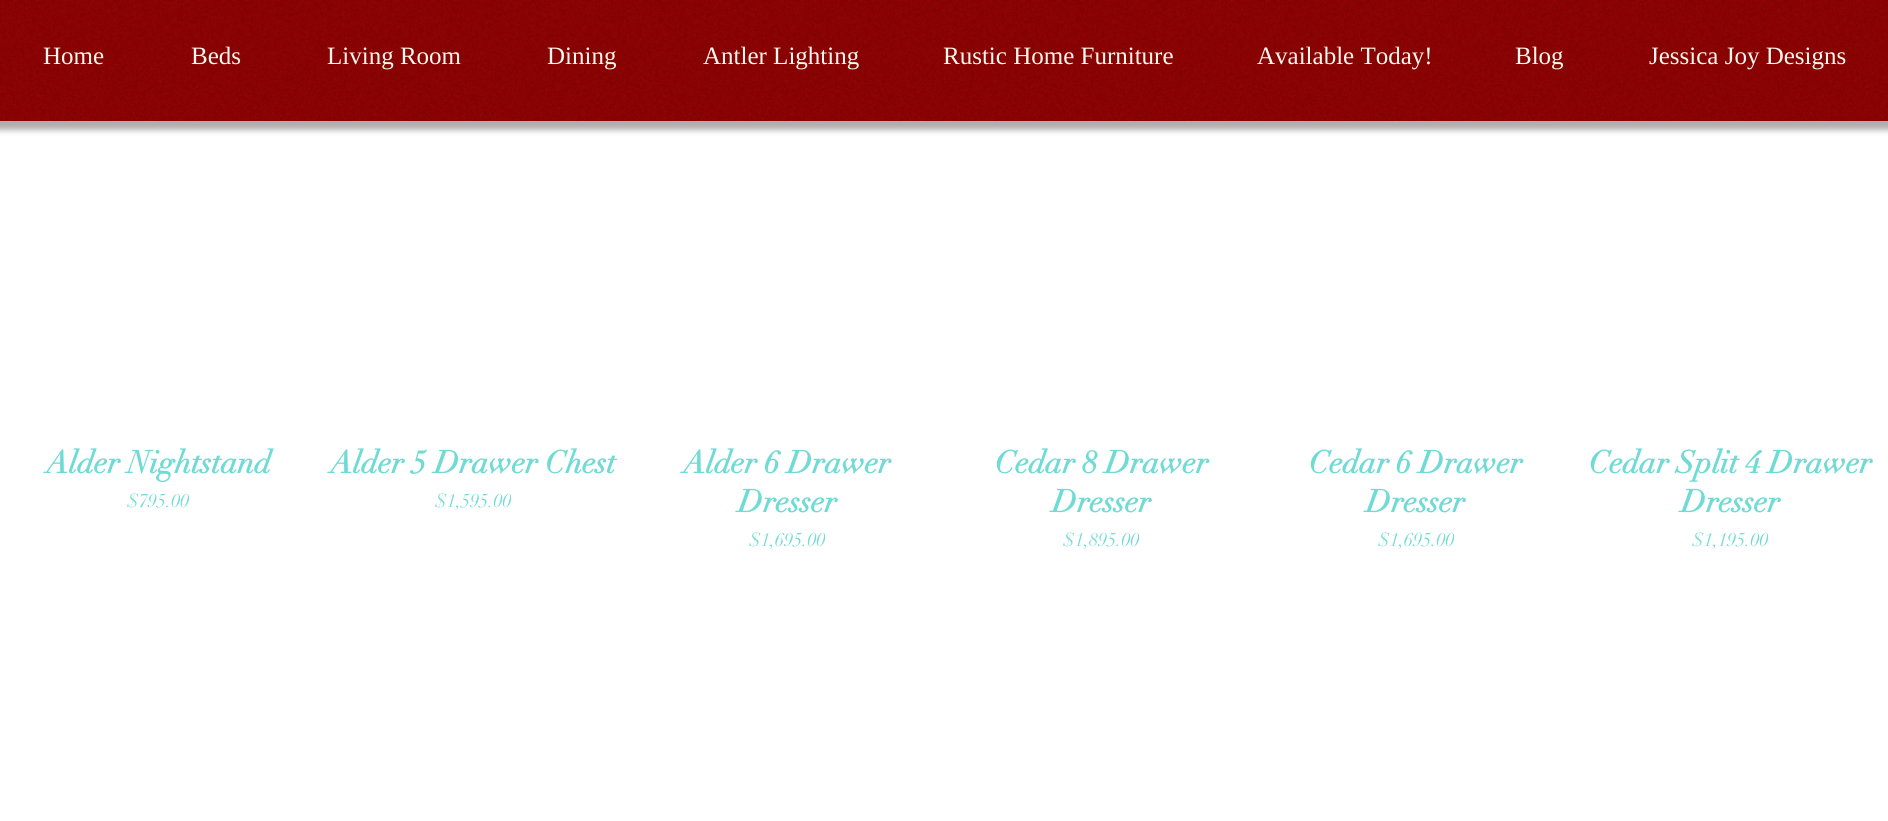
#include <cairo.h>
#include <math.h>
#include <stddef.h>


static void set_color(cairo_t *cr, unsigned color) {
    cairo_set_source_rgb(cr, (color >> 16) / 255.0, (color >> 8 & 255) / 255.0, (color & 255) / 255.0);
}

static void draw_text(cairo_t *cr, double x, double y, const char *s, const char *family, double size, int italic, int bold, unsigned color) {
    cairo_select_font_face(cr, family, italic ? CAIRO_FONT_SLANT_ITALIC : CAIRO_FONT_SLANT_NORMAL,
        bold ? CAIRO_FONT_WEIGHT_BOLD : CAIRO_FONT_WEIGHT_NORMAL);
    cairo_set_font_size(cr, size);
    set_color(cr, color);
    cairo_move_to(cr, x, y);
    cairo_show_text(cr, s);
}

static void fill_rect(cairo_t *cr, double x, double y, double w, double h, unsigned color) {
    set_color(cr, color);
    cairo_rectangle(cr, x, y, w, h);
    cairo_fill(cr);
}

static void rounded_rect(cairo_t *cr, double x, double y, double w, double h, double r) {
    cairo_new_sub_path(cr);
    cairo_arc(cr, x + w - r, y + h - r, r, 0, M_PI / 2);
    cairo_arc(cr, x + r, y + h - r, r, M_PI / 2, M_PI);
    cairo_arc(cr, x + r, y + r, r, M_PI, 1.5 * M_PI);
    cairo_arc(cr, x + w - r, y + r, r, 1.5 * M_PI, 2 * M_PI);
    cairo_close_path(cr);
}

static void draw_shadow(cairo_t *cr, double x, double y, double w, double h, double r, double blur, double alpha) {
    cairo_push_group_with_content(cr, CAIRO_CONTENT_ALPHA);
    cairo_set_operator(cr, CAIRO_OPERATOR_SOURCE);
    for (int i = 15; i >= -15 && fmin(w, h) + blur * i / 3 > 0; i -= 2) {
        double e = blur * i / 6;
        cairo_set_source_rgba(cr, 0, 0, 0, alpha * erfc((i - 1) / 8.5) / 2);
        rounded_rect(cr, x - e, y - e, w + 2 * e, h + 2 * e, fmax(0, fmin(r + e + blur * .6, fmin(w, h) / 2 + e)));
        cairo_fill(cr);
    }
    cairo_pattern_t *soft = cairo_pop_group(cr);
    cairo_mask(cr, soft);
    cairo_pattern_destroy(soft);
}

static void draw_image(cairo_t *cr, const char *path, double x, double y, double w, double h) {
    cairo_surface_t *image = cairo_image_surface_create_from_png(path);
    cairo_save(cr);
    cairo_set_source_surface(cr, image, x, y);
    cairo_rectangle(cr, x, y, w, h);
    cairo_fill(cr);
    cairo_restore(cr);
    cairo_surface_destroy(image);
}

int main(void) {
    cairo_surface_t *surface = cairo_image_surface_create(CAIRO_FORMAT_RGB24, 1888, 821);
    cairo_t *cr = cairo_create(surface);
    cairo_font_options_t *options = cairo_font_options_create();
    cairo_font_options_set_hint_metrics(options, CAIRO_HINT_METRICS_OFF);
    cairo_font_options_set_hint_style(options, CAIRO_HINT_STYLE_NONE);
    cairo_set_font_options(cr, options);
    cairo_set_miter_limit(cr, 4);
    set_color(cr, 0xFFFFFF);
    cairo_paint(cr);
    set_color(cr, 0x000000);
    draw_shadow(cr, -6, -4, 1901, 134, 0, 3, 0.32);
    fill_rect(cr, 0, 0, 1888, 121, 0x8B0000);
    draw_image(cr, "assets/img1.png", 0, 0, 1888, 121);
    draw_text(cr, 43, 64, "Home", "Liberation Serif", 25, 0, 0, 0xFCF8ED);
    draw_text(cr, 191, 64, "Beds", "Liberation Serif", 25, 0, 0, 0xFCF8ED);
    draw_text(cr, 327, 64, "Living Room", "Liberation Serif", 25, 0, 0, 0xFCF8ED);
    draw_text(cr, 547, 64, "Dining", "Liberation Serif", 25, 0, 0, 0xFCF8ED);
    draw_text(cr, 703, 64, "Antler Lighting", "Liberation Serif", 25, 0, 0, 0xFCF8ED);
    draw_text(cr, 943, 64, "Rustic Home Furniture", "Liberation Serif", 25, 0, 0, 0xFCF8ED);
    draw_text(cr, 1257, 64, "Available Today!", "Liberation Serif", 25, 0, 0, 0xFCF8ED);
    draw_text(cr, 1515, 64, "Blog", "Liberation Serif", 25, 0, 0, 0xFCF8ED);
    draw_text(cr, 1649, 64, "Jessica Joy Designs", "Liberation Serif", 25, 0, 0, 0xFCF8ED);
    draw_text(cr, 46, 473, "Alder Nightstand", "didot", 31.25, 0, 1, 0x70DBD4);
    draw_text(cr, 127, 507, "$795.00", "didot", 18.75, 0, 0, 0x70DBD4);
    draw_text(cr, 330, 473, "Alder 5 Drawer Chest", "didot", 31.25, 0, 1, 0x70DBD4);
    draw_text(cr, 435, 507, "$1,595.00", "didot", 18.75, 0, 0, 0x70DBD4);
    draw_text(cr, 683, 473, "Alder 6 Drawer", "didot", 31.25, 0, 1, 0x70DBD4);
    draw_text(cr, 738, 512, "Dresser", "didot", 31.25, 0, 1, 0x70DBD4);
    draw_text(cr, 749, 546, "$1,695.00", "didot", 18.75, 0, 0, 0x70DBD4);
    draw_text(cr, 995, 473, "Cedar 8 Drawer", "didot", 31.25, 0, 1, 0x70DBD4);
    draw_text(cr, 1052, 512, "Dresser", "didot", 31.25, 0, 1, 0x70DBD4);
    draw_text(cr, 1063, 546, "$1,895.00", "didot", 18.75, 0, 0, 0x70DBD4);
    draw_text(cr, 1309, 473, "Cedar 6 Drawer", "didot", 31.25, 0, 1, 0x70DBD4);
    draw_text(cr, 1366, 512, "Dresser", "didot", 31.25, 0, 1, 0x70DBD4);
    draw_text(cr, 1378, 546, "$1,695.00", "didot", 18.75, 0, 0, 0x70DBD4);
    draw_text(cr, 1589, 473, "Cedar Split 4 Drawer", "didot", 31.25, 0, 1, 0x70DBD4);
    draw_text(cr, 1681, 512, "Dresser", "didot", 31.25, 0, 1, 0x70DBD4);
    draw_text(cr, 1692, 546, "$1,195.00", "didot", 18.75, 0, 0, 0x70DBD4);
    cairo_surface_write_to_png(surface, "output.png");
    cairo_font_options_destroy(options);
    cairo_destroy(cr);
    cairo_surface_destroy(surface);
    return 0;
}
